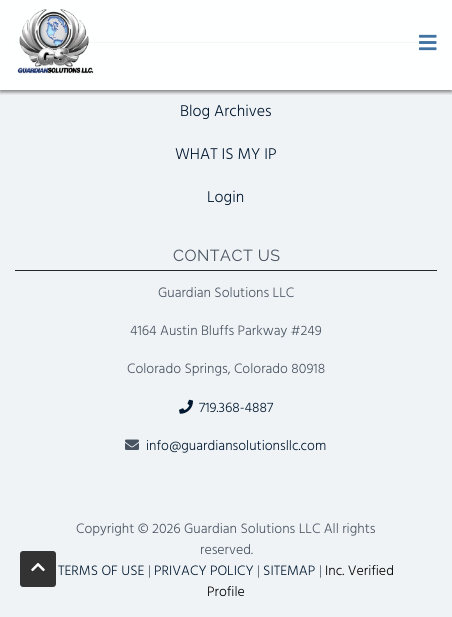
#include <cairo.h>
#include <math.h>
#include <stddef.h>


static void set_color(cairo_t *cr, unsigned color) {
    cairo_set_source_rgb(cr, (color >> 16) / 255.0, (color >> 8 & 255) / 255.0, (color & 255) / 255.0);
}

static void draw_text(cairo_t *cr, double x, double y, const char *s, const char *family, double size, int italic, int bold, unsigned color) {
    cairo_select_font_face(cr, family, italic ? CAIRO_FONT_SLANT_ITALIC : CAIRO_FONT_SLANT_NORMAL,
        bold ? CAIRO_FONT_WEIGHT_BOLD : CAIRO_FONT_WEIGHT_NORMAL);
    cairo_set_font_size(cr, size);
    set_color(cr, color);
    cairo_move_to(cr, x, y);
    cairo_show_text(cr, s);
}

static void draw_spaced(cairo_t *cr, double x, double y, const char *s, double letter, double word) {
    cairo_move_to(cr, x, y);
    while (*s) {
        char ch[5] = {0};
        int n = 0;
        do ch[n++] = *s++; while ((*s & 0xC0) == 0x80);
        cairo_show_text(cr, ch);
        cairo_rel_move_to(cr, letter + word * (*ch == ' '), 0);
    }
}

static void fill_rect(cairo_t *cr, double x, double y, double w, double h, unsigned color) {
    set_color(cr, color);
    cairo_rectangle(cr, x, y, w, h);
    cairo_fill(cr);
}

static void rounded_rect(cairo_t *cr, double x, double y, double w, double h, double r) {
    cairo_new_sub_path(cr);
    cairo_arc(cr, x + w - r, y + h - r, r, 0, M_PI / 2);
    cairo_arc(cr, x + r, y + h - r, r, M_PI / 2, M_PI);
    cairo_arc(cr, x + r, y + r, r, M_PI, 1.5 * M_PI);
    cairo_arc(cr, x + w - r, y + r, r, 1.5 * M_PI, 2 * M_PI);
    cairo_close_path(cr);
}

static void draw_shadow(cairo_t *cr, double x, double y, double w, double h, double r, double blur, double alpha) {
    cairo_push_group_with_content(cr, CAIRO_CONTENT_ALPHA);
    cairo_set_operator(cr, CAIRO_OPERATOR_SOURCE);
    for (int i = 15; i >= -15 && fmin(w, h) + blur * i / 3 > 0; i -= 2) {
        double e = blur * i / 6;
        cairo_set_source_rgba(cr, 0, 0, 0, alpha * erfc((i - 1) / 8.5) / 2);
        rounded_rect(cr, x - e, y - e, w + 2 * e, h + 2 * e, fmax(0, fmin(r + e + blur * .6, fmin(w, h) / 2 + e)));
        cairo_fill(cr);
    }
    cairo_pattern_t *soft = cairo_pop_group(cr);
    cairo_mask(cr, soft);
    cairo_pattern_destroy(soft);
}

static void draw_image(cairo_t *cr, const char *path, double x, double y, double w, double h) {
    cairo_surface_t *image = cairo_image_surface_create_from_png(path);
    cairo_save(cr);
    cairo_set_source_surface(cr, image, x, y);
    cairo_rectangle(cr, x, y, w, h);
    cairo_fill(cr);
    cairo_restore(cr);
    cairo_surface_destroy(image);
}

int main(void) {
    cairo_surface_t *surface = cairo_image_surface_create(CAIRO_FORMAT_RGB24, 452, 617);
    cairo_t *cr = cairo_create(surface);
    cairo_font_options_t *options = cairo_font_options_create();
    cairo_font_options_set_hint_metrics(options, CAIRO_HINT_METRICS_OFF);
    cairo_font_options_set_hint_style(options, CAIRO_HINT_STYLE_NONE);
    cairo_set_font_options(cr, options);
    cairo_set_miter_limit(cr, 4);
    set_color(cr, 0xF0F3F6);
    cairo_paint(cr);
    set_color(cr, 0x333333);
    rounded_rect(cr, 20, 551, 36, 36, 3);
    cairo_fill(cr);
    draw_image(cr, "assets/img1.png", 31, 562, 14, 10);
    fill_rect(cr, 0, 0, 452, 90, 0xFEFFFF);
    fill_rect(cr, 15, 42, 404, 1, 0xF6F6F6);
    cairo_save(cr);
    cairo_rectangle(cr, 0, 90, 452, 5);
    cairo_clip(cr);
    set_color(cr, 0x000000);
    draw_shadow(cr, 0, 2, 452, 90, 0, 2, 0.49);
    cairo_restore(cr);
    draw_image(cr, "assets/img2.png", 17, 9, 77, 65);
    draw_image(cr, "assets/img3.png", 419, 34, 18, 17);
    draw_text(cr, 180, 116, "Blog Archives", "Hind Light", 16, 0, 0, 0x001830);
    draw_text(cr, 175, 159, "WHAT IS MY IP", "Hind Light", 16, 0, 0, 0x001830);
    draw_text(cr, 207, 202, "Login", "Hind Light", 16, 0, 0, 0x001830);
    fill_rect(cr, 15, 270, 422, 1, 0x262626);
    cairo_select_font_face(cr, "Raleway", CAIRO_FONT_SLANT_NORMAL, CAIRO_FONT_WEIGHT_NORMAL);
    set_color(cr, 0x475360);
    draw_spaced(cr, 173, 261, "CONTACT US", 0.5, 0);
    draw_text(cr, 158, 297, "Guardian Solutions LLC", "Hind Light", 14, 0, 0, 0x475360);
    draw_text(cr, 130, 335, "4164 Austin Bluffs Parkway #249", "Hind Light", 14, 0, 0, 0x475360);
    draw_text(cr, 127, 373, "Colorado Springs, Colorado 80918", "Hind Light", 14, 0, 0, 0x475360);
    draw_image(cr, "assets/img4.png", 179, 399, 14, 15);
    draw_text(cr, 199, 412, "719.368-4887", "Hind Light", 14, 0, 0, 0x001830);
    draw_image(cr, "assets/img5.png", 125, 439, 14, 11);
    draw_text(cr, 146, 450, "info@guardiansolutionsllc.com", "Hind Light", 14, 0, 0, 0x001830);
    draw_text(cr, 76, 533, "Copyright © 2026 Guardian Solutions LLC All rights", "Hind Light", 14, 0, 0, 0x475360);
    draw_text(cr, 200, 554, "reserved.", "Hind Light", 14, 0, 0, 0x475360);
    draw_text(cr, 58, 575, "TERMS OF USE", "Hind Light", 14, 0, 0, 0x001830);
    draw_text(cr, 148, 575, "|", "Hind Light", 14, 0, 0, 0x475360);
    draw_text(cr, 154, 575, "PRIVACY POLICY", "Hind Light", 14, 0, 0, 0x001830);
    draw_text(cr, 257, 575, "|", "Hind Light", 14, 0, 0, 0x475360);
    draw_text(cr, 263, 575, "SITEMAP", "Hind Light", 14, 0, 0, 0x001830);
    draw_text(cr, 319, 575, "|", "Hind Light", 14, 0, 0, 0x475360);
    draw_text(cr, 325, 575, "Inc. Verified", "Hind Light", 14, 0, 0, 0x000000);
    draw_text(cr, 207, 596, "Profile", "Hind Light", 14, 0, 0, 0x000000);
    cairo_surface_write_to_png(surface, "output.png");
    cairo_font_options_destroy(options);
    cairo_destroy(cr);
    cairo_surface_destroy(surface);
    return 0;
}
